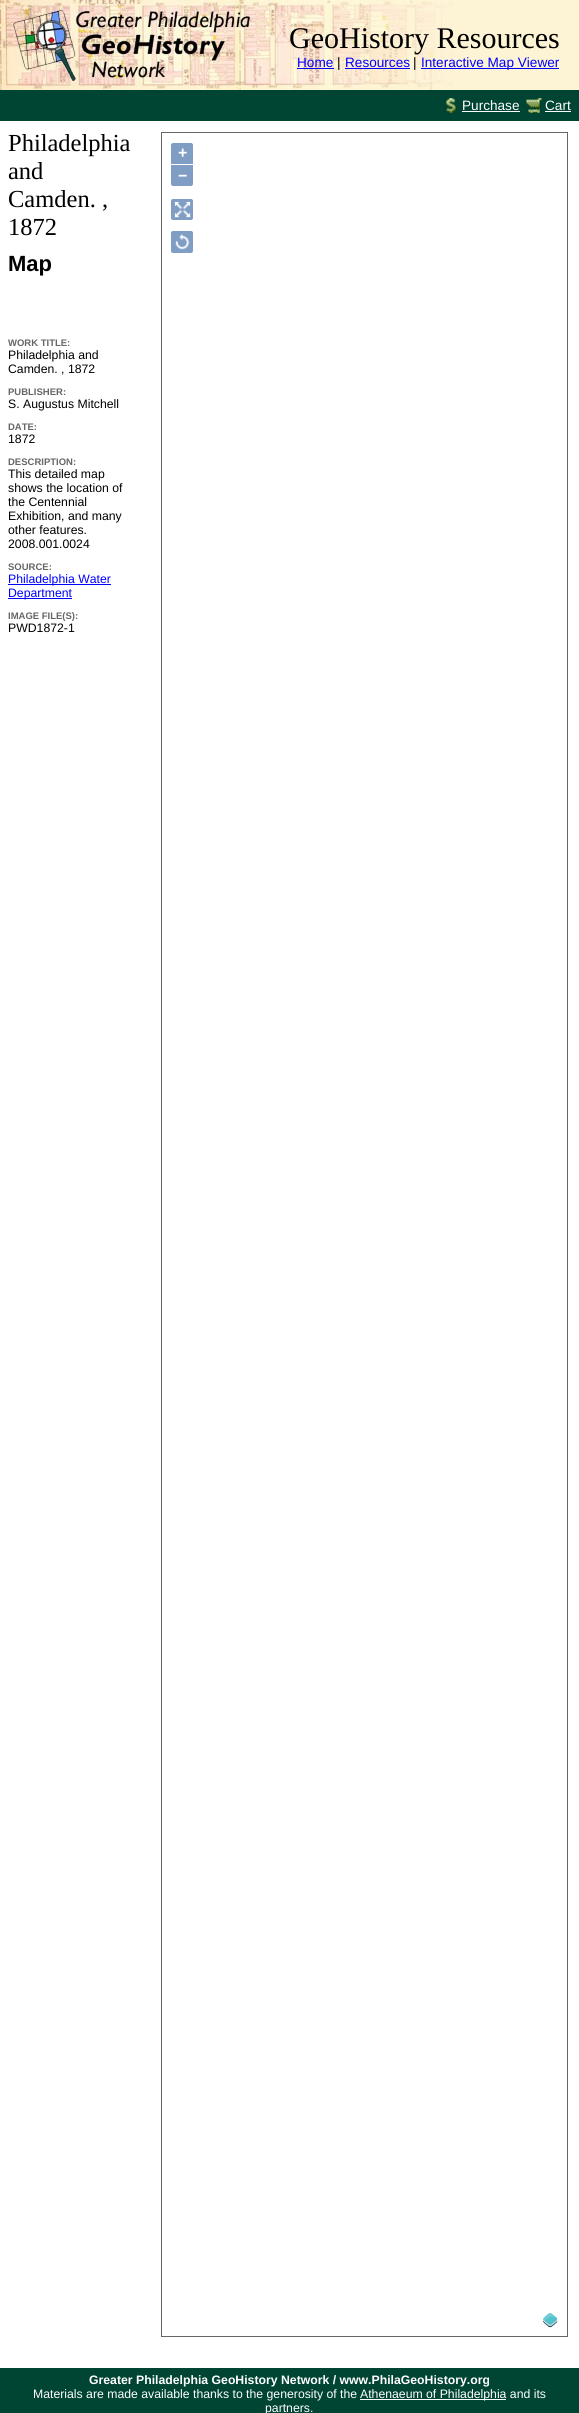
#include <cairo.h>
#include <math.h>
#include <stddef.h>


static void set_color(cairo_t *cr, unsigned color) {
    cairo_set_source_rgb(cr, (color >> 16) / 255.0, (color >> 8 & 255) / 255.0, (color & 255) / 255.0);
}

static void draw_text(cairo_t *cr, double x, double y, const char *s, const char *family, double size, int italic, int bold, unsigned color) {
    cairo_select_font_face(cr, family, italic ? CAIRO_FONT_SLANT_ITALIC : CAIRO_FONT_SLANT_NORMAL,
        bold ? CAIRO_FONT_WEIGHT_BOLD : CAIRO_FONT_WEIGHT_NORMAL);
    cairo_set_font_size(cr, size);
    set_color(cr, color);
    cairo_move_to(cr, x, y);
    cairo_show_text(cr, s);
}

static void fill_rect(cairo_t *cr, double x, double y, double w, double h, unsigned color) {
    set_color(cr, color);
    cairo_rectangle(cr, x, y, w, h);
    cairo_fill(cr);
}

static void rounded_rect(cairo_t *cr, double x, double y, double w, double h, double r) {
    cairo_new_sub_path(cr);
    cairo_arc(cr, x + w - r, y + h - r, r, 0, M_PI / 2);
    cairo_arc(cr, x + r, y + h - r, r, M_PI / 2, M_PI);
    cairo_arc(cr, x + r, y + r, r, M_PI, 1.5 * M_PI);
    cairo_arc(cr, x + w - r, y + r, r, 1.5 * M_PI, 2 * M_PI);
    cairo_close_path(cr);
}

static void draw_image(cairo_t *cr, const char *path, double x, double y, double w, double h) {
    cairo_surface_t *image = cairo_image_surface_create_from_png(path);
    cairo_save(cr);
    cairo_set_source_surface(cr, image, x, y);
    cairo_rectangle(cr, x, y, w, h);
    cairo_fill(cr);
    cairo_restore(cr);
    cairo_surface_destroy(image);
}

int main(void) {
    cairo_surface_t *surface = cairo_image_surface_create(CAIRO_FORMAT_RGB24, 579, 2413);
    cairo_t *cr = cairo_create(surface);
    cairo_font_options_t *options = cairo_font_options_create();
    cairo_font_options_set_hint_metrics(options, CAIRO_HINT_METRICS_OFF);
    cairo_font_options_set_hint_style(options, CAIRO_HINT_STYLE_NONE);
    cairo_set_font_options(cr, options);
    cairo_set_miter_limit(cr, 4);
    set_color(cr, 0xFFFFFF);
    cairo_paint(cr);
    fill_rect(cr, 454, 0, 125, 90, 0xFDF4D5);
    draw_image(cr, "assets/img1.png", 0, 0, 454, 90);
    draw_text(cr, 289, 48, "GeoHistory Resources", "Liberation Serif", 30, 0, 0, 0x000000);
    draw_text(cr, 297, 67, "Home", "Liberation Sans", 13.6, 0, 0, 0x0000FF);
    fill_rect(cr, 297, 68, 37, 1, 0x0000FF);
    draw_text(cr, 337, 67, "|", "Liberation Sans", 13.6, 0, 0, 0x000000);
    draw_text(cr, 345, 67, "Resources", "Liberation Sans", 13.6, 0, 0, 0x0000FF);
    fill_rect(cr, 345, 68, 65, 1, 0x0000FF);
    draw_text(cr, 413, 67, "|", "Liberation Sans", 13.6, 0, 0, 0x000000);
    fill_rect(cr, 421, 68, 138, 1, 0x0000FF);
    draw_text(cr, 421, 67, "Interactive Map Viewer", "Liberation Sans", 13.6, 0, 0, 0x0000FF);
    fill_rect(cr, 0, 90, 579, 31, 0x004433);
    draw_image(cr, "assets/img2.png", 446, 98, 10, 15);
    draw_text(cr, 462, 110, "Purchase", "Liberation Sans", 13.6, 0, 0, 0xFFFFFF);
    fill_rect(cr, 462, 111, 58, 1, 0xFFFFFF);
    draw_image(cr, "assets/img3.png", 526, 98, 16, 15);
    draw_text(cr, 545, 110, "Cart", "Liberation Sans", 13.6, 0, 0, 0xFFFFFF);
    fill_rect(cr, 545, 111, 26, 1, 0xFFFFFF);
    draw_text(cr, 8, 151, "Philadelphia", "Liberation Serif", 24.5, 0, 0, 0x000000);
    draw_text(cr, 8, 179, "and", "Liberation Serif", 24.5, 0, 0, 0x000000);
    draw_text(cr, 8, 207, "Camden. ,", "Liberation Serif", 24.5, 0, 0, 0x000000);
    draw_text(cr, 8, 235, "1872", "Liberation Serif", 24.5, 0, 0, 0x000000);
    draw_text(cr, 8, 271, "Map", "Liberation Sans", 22, 0, 1, 0x000000);
    draw_text(cr, 8, 346, "WORK TITLE:", "Liberation Sans", 9.5, 0, 1, 0x666666);
    draw_text(cr, 8, 359, "Philadelphia and", "Liberation Sans", 12.25, 0, 0, 0x000000);
    draw_text(cr, 8, 373, "Camden. , 1872", "Liberation Sans", 12.25, 0, 0, 0x000000);
    draw_text(cr, 8, 395, "PUBLISHER:", "Liberation Sans", 9.5, 0, 1, 0x666666);
    draw_text(cr, 8, 408, "S. Augustus Mitchell", "Liberation Sans", 12.25, 0, 0, 0x000000);
    draw_text(cr, 8, 430, "DATE:", "Liberation Sans", 9.5, 0, 1, 0x666666);
    draw_text(cr, 8, 443, "1872", "Liberation Sans", 12.25, 0, 0, 0x000000);
    draw_text(cr, 8, 465, "DESCRIPTION:", "Liberation Sans", 9.5, 0, 1, 0x666666);
    draw_text(cr, 8, 478, "This detailed map", "Liberation Sans", 12.25, 0, 0, 0x000000);
    draw_text(cr, 8, 492, "shows the location of", "Liberation Sans", 12.25, 0, 0, 0x000000);
    draw_text(cr, 8, 506, "the Centennial", "Liberation Sans", 12.25, 0, 0, 0x000000);
    draw_text(cr, 8, 520, "Exhibition, and many", "Liberation Sans", 12.25, 0, 0, 0x000000);
    draw_text(cr, 8, 534, "other features.", "Liberation Sans", 12.25, 0, 0, 0x000000);
    draw_text(cr, 8, 548, "2008.001.0024", "Liberation Sans", 12.25, 0, 0, 0x000000);
    draw_text(cr, 8, 570, "SOURCE:", "Liberation Sans", 9.5, 0, 1, 0x666666);
    fill_rect(cr, 8, 584, 103, 1, 0x0000FF);
    draw_text(cr, 8, 583, "Philadelphia Water", "Liberation Sans", 12.25, 0, 0, 0x0000FF);
    fill_rect(cr, 8, 598, 64, 1, 0x0000FF);
    draw_text(cr, 8, 597, "Department", "Liberation Sans", 12.25, 0, 0, 0x0000FF);
    draw_text(cr, 8, 619, "IMAGE FILE(S):", "Liberation Sans", 9.5, 0, 1, 0x666666);
    draw_text(cr, 8, 632, "PWD1872-1", "Liberation Sans", 12.25, 0, 0, 0x000000);
    cairo_rectangle(cr, 161.5, 132.5, 406, 2204);
    set_color(cr, 0x666666);
    cairo_set_line_width(cr, 1);
    cairo_stroke(cr);
    set_color(cr, 0x809EC4);
    cairo_new_path(cr);
    cairo_move_to(cr, 173, 143);
    cairo_line_to(cr, 191, 143);
    cairo_curve_to(cr, 192, 143, 193, 144, 193, 145);
    cairo_line_to(cr, 193, 164);
    cairo_line_to(cr, 171, 164);
    cairo_line_to(cr, 171, 145);
    cairo_curve_to(cr, 171, 144, 172, 143, 173, 143);
    cairo_close_path(cr);
    cairo_fill(cr);
    draw_text(cr, 178, 158, "+", "Liberation Sans", 16, 0, 1, 0xFFFFFF);
    set_color(cr, 0x809EC4);
    cairo_new_path(cr);
    cairo_move_to(cr, 171, 165);
    cairo_line_to(cr, 193, 165);
    cairo_line_to(cr, 193, 184);
    cairo_curve_to(cr, 193, 185, 192, 186, 191, 186);
    cairo_line_to(cr, 173, 186);
    cairo_curve_to(cr, 172, 186, 171, 185, 171, 184);
    cairo_close_path(cr);
    cairo_fill(cr);
    draw_text(cr, 178, 181, "−", "Liberation Sans", 16, 0, 1, 0xFFFFFF);
    set_color(cr, 0x809EC4);
    rounded_rect(cr, 171, 199, 22, 21, 2);
    cairo_fill(cr);
    draw_image(cr, "assets/img4.png", 174, 201, 17, 17);
    rounded_rect(cr, 171, 231, 22, 22, 2);
    cairo_fill(cr);
    draw_image(cr, "assets/img5.png", 175, 234, 15, 16);
    draw_image(cr, "assets/img6.png", 543, 2313, 15, 15);
    fill_rect(cr, 0, 2368, 579, 45, 0x004433);
    draw_text(cr, 89, 2384, "Greater Philadelphia GeoHistory Network / www.PhilaGeoHistory.org", "Liberation Sans", 12.25, 0, 1, 0xFFFFFF);
    draw_text(cr, 33, 2398, "Materials are made available thanks to the generosity of the", "Liberation Sans", 12.25, 0, 0, 0xFFFFFF);
    fill_rect(cr, 360, 2399, 146, 1, 0xFFFFFF);
    draw_text(cr, 360, 2398, "Athenaeum of Philadelphia and its", "Liberation Sans", 12.25, 0, 0, 0xFFFFFF);
    draw_text(cr, 265, 2412, "partners.", "Liberation Sans", 12.25, 0, 0, 0xFFFFFF);
    cairo_surface_write_to_png(surface, "output.png");
    cairo_font_options_destroy(options);
    cairo_destroy(cr);
    cairo_surface_destroy(surface);
    return 0;
}
